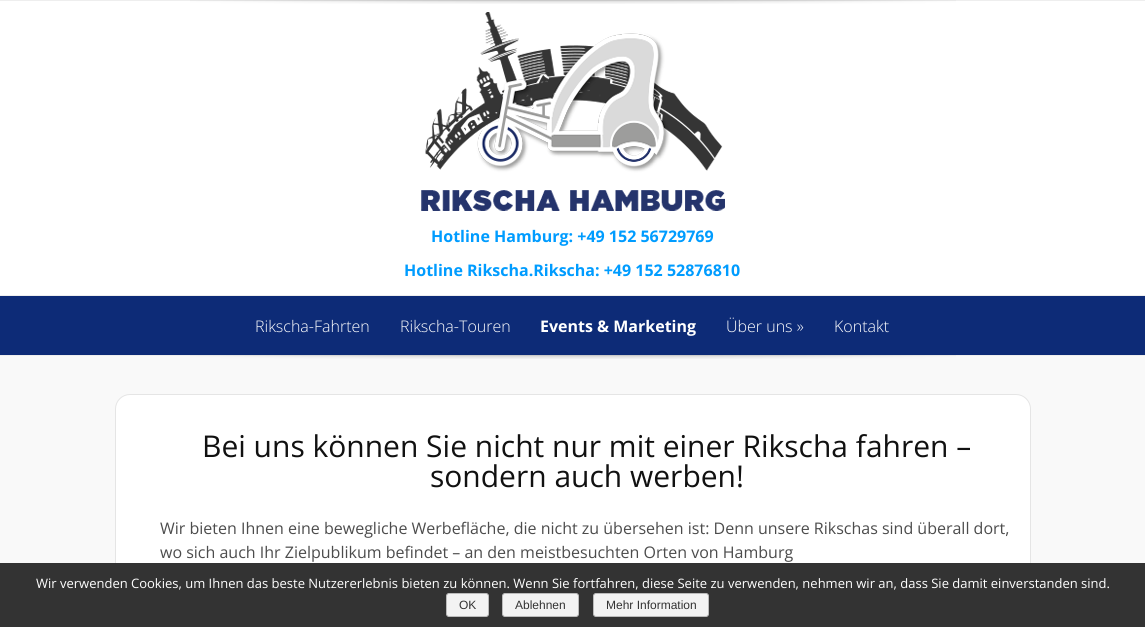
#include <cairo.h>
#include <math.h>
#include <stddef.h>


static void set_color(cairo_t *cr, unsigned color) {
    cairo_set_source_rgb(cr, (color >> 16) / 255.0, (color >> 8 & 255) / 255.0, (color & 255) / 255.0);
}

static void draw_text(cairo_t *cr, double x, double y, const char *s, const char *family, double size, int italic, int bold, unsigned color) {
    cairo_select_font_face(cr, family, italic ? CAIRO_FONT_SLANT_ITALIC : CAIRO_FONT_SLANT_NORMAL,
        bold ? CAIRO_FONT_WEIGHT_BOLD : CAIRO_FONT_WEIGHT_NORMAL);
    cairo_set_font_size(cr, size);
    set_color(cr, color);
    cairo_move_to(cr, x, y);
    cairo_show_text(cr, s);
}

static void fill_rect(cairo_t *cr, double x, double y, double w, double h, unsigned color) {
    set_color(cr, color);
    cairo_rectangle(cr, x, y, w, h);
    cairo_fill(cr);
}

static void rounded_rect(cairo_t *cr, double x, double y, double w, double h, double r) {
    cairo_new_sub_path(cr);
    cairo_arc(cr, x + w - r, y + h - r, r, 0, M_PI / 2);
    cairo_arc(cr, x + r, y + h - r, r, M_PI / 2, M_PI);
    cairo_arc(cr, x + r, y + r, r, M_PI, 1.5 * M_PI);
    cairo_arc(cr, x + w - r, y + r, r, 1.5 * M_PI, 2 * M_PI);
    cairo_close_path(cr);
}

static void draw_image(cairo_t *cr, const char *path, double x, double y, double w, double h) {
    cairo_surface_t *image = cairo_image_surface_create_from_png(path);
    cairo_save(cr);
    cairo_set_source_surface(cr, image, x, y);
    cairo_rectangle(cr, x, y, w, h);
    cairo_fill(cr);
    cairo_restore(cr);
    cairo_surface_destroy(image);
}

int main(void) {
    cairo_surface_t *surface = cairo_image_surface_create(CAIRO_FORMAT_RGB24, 1145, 627);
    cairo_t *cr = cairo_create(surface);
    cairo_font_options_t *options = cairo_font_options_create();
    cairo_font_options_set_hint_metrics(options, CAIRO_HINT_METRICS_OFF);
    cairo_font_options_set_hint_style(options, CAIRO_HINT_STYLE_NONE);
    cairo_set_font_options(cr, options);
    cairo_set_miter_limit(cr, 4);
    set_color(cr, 0xFFFFFF);
    cairo_paint(cr);
    fill_rect(cr, 0, 0, 1145, 1, 0xEEEEEE);
    draw_image(cr, "assets/img1.png", 190, 0, 766, 4);
    draw_image(cr, "assets/img2.png", 421, 12, 304, 199);
    draw_text(cr, 431, 242, "Hotline Hamburg: +49 152 56729769", "Open Sans", 16, 0, 1, 0x009CFF);
    draw_text(cr, 404, 276, "Hotline Rikscha.Rikscha: +49 152 52876810", "Open Sans", 16, 0, 1, 0x009CFF);
    fill_rect(cr, 0, 296, 1145, 59, 0x0D2B77);
    fill_rect(cr, 0, 295, 1145, 1, 0xEEEEEE);
    fill_rect(cr, 0, 355, 1145, 1, 0xEEEEEE);
    draw_text(cr, 255, 332, "Rikscha-Fahrten", "Open Sans Light", 16, 0, 0, 0xFFFFFF);
    draw_text(cr, 400, 332, "Rikscha-Touren", "Open Sans Light", 16, 0, 0, 0xFFFFFF);
    draw_text(cr, 540, 332, "Events & Marketing", "Open Sans", 16, 0, 1, 0xFFFFFF);
    draw_text(cr, 726, 332, "Über uns »", "Open Sans Light", 16, 0, 0, 0xFFFFFF);
    draw_text(cr, 834, 332, "Kontakt", "Open Sans Light", 16, 0, 0, 0xFFFFFF);
    fill_rect(cr, 0, 356, 1145, 207, 0xF9F9F9);
    draw_image(cr, "assets/img3.png", 190, 355, 766, 4);
    set_color(cr, 0xFFFFFF);
    rounded_rect(cr, 115.5, 394.5, 915, 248, 14.5);
    cairo_fill_preserve(cr);
    set_color(cr, 0xE5E5E5);
    cairo_set_line_width(cr, 1);
    cairo_stroke(cr);
    draw_text(cr, 202, 457, "Bei uns können Sie nicht nur mit einer Rikscha fahren –", "Open Sans", 30, 0, 0, 0x111111);
    draw_text(cr, 430, 487, "sondern auch werben!", "Open Sans", 30, 0, 0, 0x111111);
    draw_text(cr, 160, 534, "Wir bieten Ihnen eine bewegliche Werbefläche, die nicht zu übersehen ist: Denn unsere Rikschas sind überall dort,", "Open Sans", 16, 0, 0, 0x4C4C4C);
    draw_text(cr, 160, 558, "wo sich auch Ihr Zielpublikum befindet – an den meistbesuchten Orten von Hamburg", "Open Sans", 16, 0, 0, 0x4C4C4C);
    fill_rect(cr, 0, 563, 1145, 64, 0x333333);
    draw_text(cr, 36, 588, "Wir verwenden Cookies, um Ihnen das beste Nutzererlebnis bieten zu können. Wenn Sie fortfahren, diese Seite zu verwenden, nehmen wir an, dass Sie damit einverstanden sind.", "Open Sans", 13, 0, 0, 0xFFFFFF);
    set_color(cr, 0xF3F3F3);
    rounded_rect(cr, 446.5, 593.5, 42, 23, 2.5);
    cairo_fill_preserve(cr);
    set_color(cr, 0xBBBBBB);
    cairo_stroke(cr);
    draw_text(cr, 459, 609, "OK", "Liberation Sans", 12, 0, 0, 0x333333);
    set_color(cr, 0xF3F3F3);
    rounded_rect(cr, 502.5, 593.5, 76, 23, 2.5);
    cairo_fill_preserve(cr);
    set_color(cr, 0xBBBBBB);
    cairo_stroke(cr);
    draw_text(cr, 515, 609, "Ablehnen", "Liberation Sans", 12, 0, 0, 0x333333);
    set_color(cr, 0xF3F3F3);
    rounded_rect(cr, 593.5, 593.5, 115, 23, 2.5);
    cairo_fill_preserve(cr);
    set_color(cr, 0xBBBBBB);
    cairo_stroke(cr);
    draw_text(cr, 606, 609, "Mehr Information", "Liberation Sans", 12, 0, 0, 0x333333);
    cairo_surface_write_to_png(surface, "output.png");
    cairo_font_options_destroy(options);
    cairo_destroy(cr);
    cairo_surface_destroy(surface);
    return 0;
}
